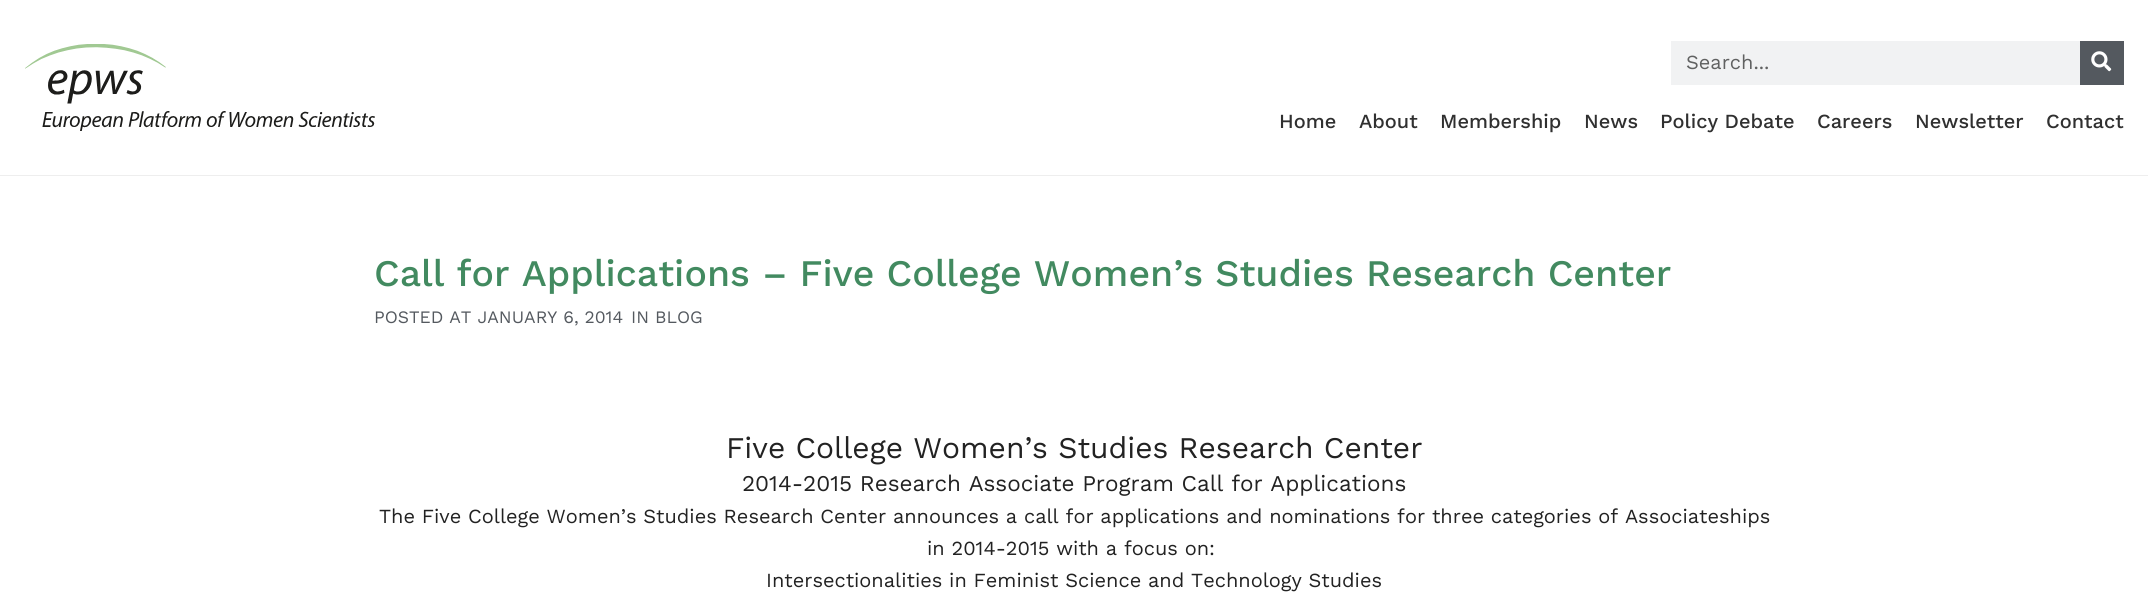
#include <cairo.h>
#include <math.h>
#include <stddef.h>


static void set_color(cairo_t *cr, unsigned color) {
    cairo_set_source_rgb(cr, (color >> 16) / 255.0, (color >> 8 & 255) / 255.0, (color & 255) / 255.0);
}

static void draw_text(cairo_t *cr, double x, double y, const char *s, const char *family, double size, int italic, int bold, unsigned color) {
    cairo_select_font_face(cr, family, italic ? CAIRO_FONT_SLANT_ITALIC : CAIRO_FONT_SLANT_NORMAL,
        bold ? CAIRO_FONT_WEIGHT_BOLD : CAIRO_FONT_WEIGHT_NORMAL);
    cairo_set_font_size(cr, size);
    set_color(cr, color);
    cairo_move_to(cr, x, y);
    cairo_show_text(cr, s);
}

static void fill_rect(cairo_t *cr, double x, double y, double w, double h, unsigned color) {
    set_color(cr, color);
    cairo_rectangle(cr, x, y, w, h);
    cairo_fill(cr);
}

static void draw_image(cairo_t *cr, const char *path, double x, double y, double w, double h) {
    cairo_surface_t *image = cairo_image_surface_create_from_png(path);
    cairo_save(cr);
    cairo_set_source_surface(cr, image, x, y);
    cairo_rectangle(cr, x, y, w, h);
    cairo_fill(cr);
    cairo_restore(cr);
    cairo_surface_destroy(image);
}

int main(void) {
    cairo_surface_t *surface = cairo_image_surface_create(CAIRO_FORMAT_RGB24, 2148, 605);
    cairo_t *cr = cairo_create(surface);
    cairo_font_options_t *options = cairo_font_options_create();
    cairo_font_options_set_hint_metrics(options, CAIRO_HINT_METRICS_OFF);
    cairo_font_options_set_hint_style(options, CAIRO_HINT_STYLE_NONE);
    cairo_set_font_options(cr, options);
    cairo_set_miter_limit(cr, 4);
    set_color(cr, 0xFFFFFF);
    cairo_paint(cr);
    fill_rect(cr, 0, 175, 2148, 1, 0xEEEEEE);
    draw_image(cr, "assets/img1.png", 25, 44, 350, 87);
    fill_rect(cr, 1671, 41, 409, 44, 0xF1F2F3);
    draw_text(cr, 1686, 69, "Search...", "Work Sans", 20, 0, 0, 0x606161);
    fill_rect(cr, 2080, 41, 44, 44, 0x54595F);
    draw_image(cr, "assets/img2.png", 2091, 51, 21, 21);
    draw_text(cr, 1279, 128, "Home", "Work Sans Medium", 20, 0, 0, 0x303030);
    draw_text(cr, 1359, 128, "About", "Work Sans Medium", 20, 0, 0, 0x303030);
    draw_text(cr, 1440, 128, "Membership", "Work Sans Medium", 20, 0, 0, 0x303030);
    draw_text(cr, 1584, 128, "News", "Work Sans Medium", 20, 0, 0, 0x303030);
    draw_text(cr, 1660, 128, "Policy Debate", "Work Sans Medium", 20, 0, 0, 0x303030);
    draw_text(cr, 1817, 128, "Careers", "Work Sans Medium", 20, 0, 0, 0x303030);
    draw_text(cr, 1915, 128, "Newsletter", "Work Sans Medium", 20, 0, 0, 0x303030);
    draw_text(cr, 2046, 128, "Contact", "Work Sans Medium", 20, 0, 0, 0x303030);
    draw_text(cr, 374, 286, "Call for Applications – Five College Women’s Studies Research Center", "Work Sans Medium", 37.5, 0, 0, 0x428A60);
    draw_text(cr, 374, 323, "POSTED AT JANUARY 6, 2014", "Work Sans", 17.5, 0, 0, 0x54595F);
    draw_text(cr, 631, 323, "IN BLOG", "Work Sans", 17.5, 0, 0, 0x54595F);
    draw_text(cr, 726, 458, "Five College Women’s Studies Research Center", "Work Sans", 30, 0, 0, 0x222222);
    draw_text(cr, 742, 491, "2014-2015 Research Associate Program Call for Applications", "Work Sans", 22.5, 0, 0, 0x222222);
    draw_text(cr, 379, 523, "The Five College Women’s Studies Research Center announces a call for applications and nominations for three categories of Associateships", "Work Sans", 20, 0, 0, 0x222222);
    draw_text(cr, 927, 555, "in 2014-2015 with a focus on:", "Work Sans", 20, 0, 0, 0x222222);
    draw_text(cr, 766, 587, "Intersectionalities in Feminist Science and Technology Studies", "Work Sans", 20, 0, 0, 0x222222);
    cairo_surface_write_to_png(surface, "output.png");
    cairo_font_options_destroy(options);
    cairo_destroy(cr);
    cairo_surface_destroy(surface);
    return 0;
}
